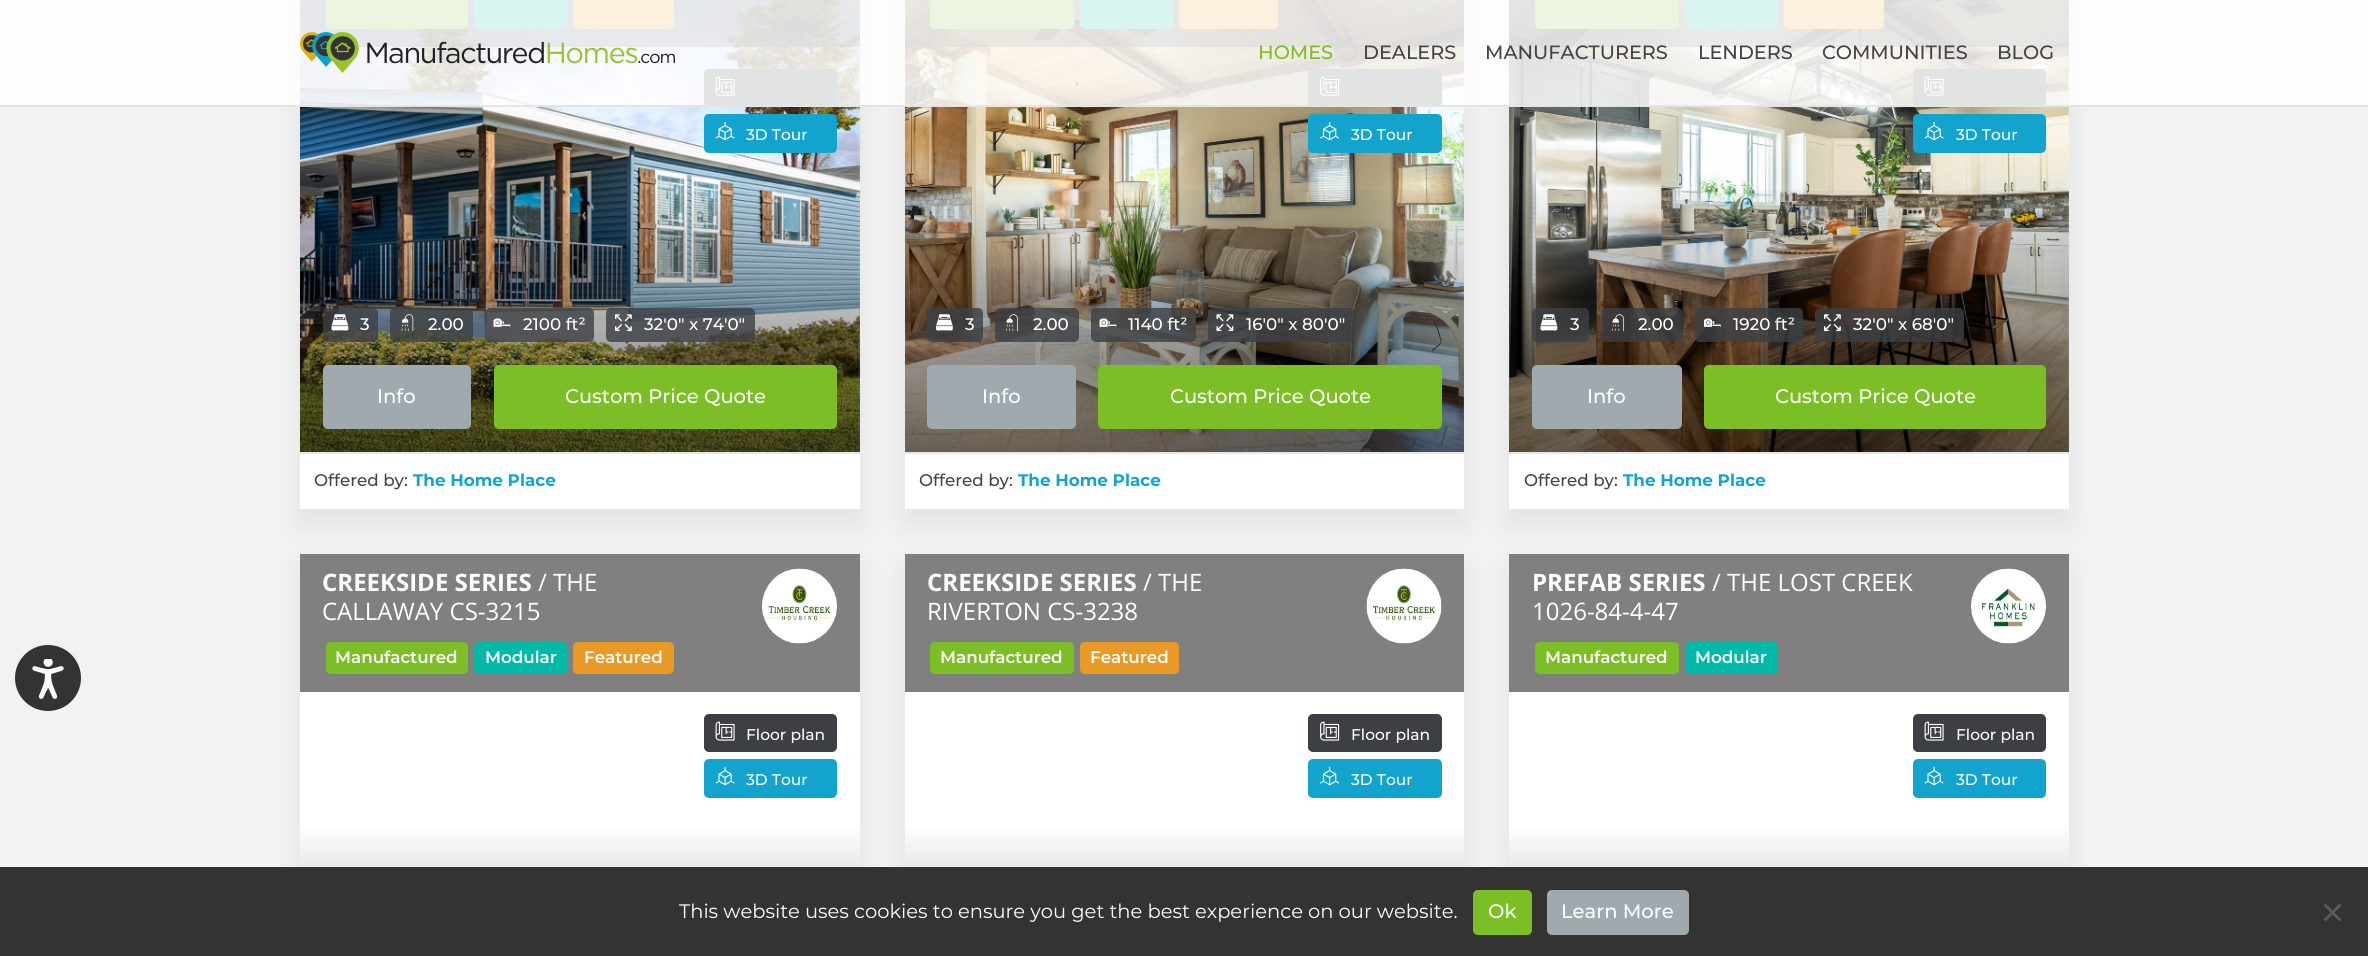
#include <cairo.h>
#include <math.h>
#include <stddef.h>


static void set_color(cairo_t *cr, unsigned color) {
    cairo_set_source_rgb(cr, (color >> 16) / 255.0, (color >> 8 & 255) / 255.0, (color & 255) / 255.0);
}

static void draw_text(cairo_t *cr, double x, double y, const char *s, const char *family, double size, int italic, int bold, unsigned color) {
    cairo_select_font_face(cr, family, italic ? CAIRO_FONT_SLANT_ITALIC : CAIRO_FONT_SLANT_NORMAL,
        bold ? CAIRO_FONT_WEIGHT_BOLD : CAIRO_FONT_WEIGHT_NORMAL);
    cairo_set_font_size(cr, size);
    set_color(cr, color);
    cairo_move_to(cr, x, y);
    cairo_show_text(cr, s);
}

static void fill_rect(cairo_t *cr, double x, double y, double w, double h, unsigned color) {
    set_color(cr, color);
    cairo_rectangle(cr, x, y, w, h);
    cairo_fill(cr);
}

static void rounded_rect(cairo_t *cr, double x, double y, double w, double h, double r) {
    cairo_new_sub_path(cr);
    cairo_arc(cr, x + w - r, y + h - r, r, 0, M_PI / 2);
    cairo_arc(cr, x + r, y + h - r, r, M_PI / 2, M_PI);
    cairo_arc(cr, x + r, y + r, r, M_PI, 1.5 * M_PI);
    cairo_arc(cr, x + w - r, y + r, r, 1.5 * M_PI, 2 * M_PI);
    cairo_close_path(cr);
}

static void draw_shadow(cairo_t *cr, double x, double y, double w, double h, double r, double blur, double alpha) {
    cairo_push_group_with_content(cr, CAIRO_CONTENT_ALPHA);
    cairo_set_operator(cr, CAIRO_OPERATOR_SOURCE);
    for (int i = 15; i >= -15 && fmin(w, h) + blur * i / 3 > 0; i -= 2) {
        double e = blur * i / 6;
        cairo_set_source_rgba(cr, 0, 0, 0, alpha * erfc((i - 1) / 8.5) / 2);
        rounded_rect(cr, x - e, y - e, w + 2 * e, h + 2 * e, fmax(0, fmin(r + e + blur * .6, fmin(w, h) / 2 + e)));
        cairo_fill(cr);
    }
    cairo_pattern_t *soft = cairo_pop_group(cr);
    cairo_mask(cr, soft);
    cairo_pattern_destroy(soft);
}

static void draw_image(cairo_t *cr, const char *path, double x, double y, double w, double h) {
    cairo_surface_t *image = cairo_image_surface_create_from_png(path);
    cairo_save(cr);
    cairo_set_source_surface(cr, image, x, y);
    cairo_rectangle(cr, x, y, w, h);
    cairo_fill(cr);
    cairo_restore(cr);
    cairo_surface_destroy(image);
}

int main(void) {
    cairo_surface_t *surface = cairo_image_surface_create(CAIRO_FORMAT_RGB24, 2368, 956);
    cairo_t *cr = cairo_create(surface);
    cairo_font_options_t *options = cairo_font_options_create();
    cairo_font_options_set_hint_metrics(options, CAIRO_HINT_METRICS_OFF);
    cairo_font_options_set_hint_style(options, CAIRO_HINT_STYLE_NONE);
    cairo_set_font_options(cr, options);
    cairo_set_miter_limit(cr, 4);
    cairo_pattern_t *gradient;
    set_color(cr, 0xFFFFFF);
    cairo_paint(cr);
    gradient = cairo_pattern_create_linear(1184, -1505, 1184, 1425);
    cairo_pattern_add_color_stop_rgba(gradient, 0, 1, 1, 1, 1);
    cairo_pattern_add_color_stop_rgba(gradient, 0.25, 0.949, 0.949, 0.949, 1);
    cairo_set_source(cr, gradient);
    cairo_pattern_destroy(gradient);
    cairo_rectangle(cr, 0, 0, 2368, 867);
    cairo_fill(cr);
    set_color(cr, 0x000000);
    draw_shadow(cr, 300, -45, 560, 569, 0, 15, 0.07);
    draw_image(cr, "assets/img3.png", 300, 0, 560, 452);
    gradient = cairo_pattern_create_linear(580, 509, 580, -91);
    cairo_pattern_add_color_stop_rgba(gradient, 0, 0, 0, 0, 0.65);
    cairo_pattern_add_color_stop_rgba(gradient, 0.55, 0, 0, 0, 0);
    cairo_set_source(cr, gradient);
    cairo_pattern_destroy(gradient);
    cairo_rectangle(cr, 300, 190, 560, 262);
    cairo_fill(cr);
    set_color(cr, 0x000000);
    draw_shadow(cr, 905, -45, 559, 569, 0, 15, 0.07);
    cairo_set_source_rgba(cr, 0, 0, 0, 0.5);
    cairo_rectangle(cr, 300, 0, 560, 47);
    cairo_fill(cr);
    set_color(cr, 0x7CBE25);
    rounded_rect(cr, 326, -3, 142, 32, 5);
    cairo_fill(cr);
    set_color(cr, 0x00BAA7);
    rounded_rect(cr, 474, -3, 93, 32, 5);
    cairo_fill(cr);
    set_color(cr, 0xE99926);
    rounded_rect(cr, 573, -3, 101, 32, 5);
    cairo_fill(cr);
    set_color(cr, 0x3C4044);
    rounded_rect(cr, 704, 69, 133, 38, 5);
    cairo_fill(cr);
    draw_image(cr, "assets/img4.png", 715, 76, 20, 20);
    draw_image(cr, "assets/img10.png", 905, 0, 559, 452);
    gradient = cairo_pattern_create_linear(1184, 509, 1184, -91);
    cairo_pattern_add_color_stop_rgba(gradient, 0, 0, 0, 0, 0.65);
    cairo_pattern_add_color_stop_rgba(gradient, 0.55, 0, 0, 0, 0);
    cairo_set_source(cr, gradient);
    cairo_pattern_destroy(gradient);
    cairo_rectangle(cr, 905, 190, 559, 262);
    cairo_fill(cr);
    set_color(cr, 0x000000);
    draw_shadow(cr, 1509, -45, 560, 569, 0, 15, 0.07);
    cairo_set_source_rgba(cr, 0, 0, 0, 0.5);
    cairo_rectangle(cr, 905, 0, 559, 47);
    cairo_fill(cr);
    set_color(cr, 0x7CBE25);
    rounded_rect(cr, 930, -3, 144, 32, 5);
    cairo_fill(cr);
    set_color(cr, 0x00BAA7);
    rounded_rect(cr, 1080, -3, 93, 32, 5);
    cairo_fill(cr);
    set_color(cr, 0xE99926);
    rounded_rect(cr, 1179, -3, 99, 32, 5);
    cairo_fill(cr);
    set_color(cr, 0x3C4044);
    rounded_rect(cr, 1308, 69, 134, 38, 5);
    cairo_fill(cr);
    draw_image(cr, "assets/img11.png", 1320, 76, 20, 20);
    draw_image(cr, "assets/img17.png", 1509, 0, 560, 452);
    cairo_set_source_rgba(cr, 0, 0, 0, 0.5);
    cairo_rectangle(cr, 1509, 0, 560, 47);
    cairo_fill(cr);
    set_color(cr, 0x7CBE25);
    rounded_rect(cr, 1535, -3, 144, 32, 5);
    cairo_fill(cr);
    set_color(cr, 0x00BAA7);
    rounded_rect(cr, 1685, -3, 93, 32, 5);
    cairo_fill(cr);
    set_color(cr, 0xE99926);
    rounded_rect(cr, 1784, -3, 100, 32, 5);
    cairo_fill(cr);
    set_color(cr, 0x3C4044);
    rounded_rect(cr, 1913, 69, 133, 38, 5);
    cairo_fill(cr);
    draw_image(cr, "assets/img4.png", 1924, 76, 20, 20);
    cairo_set_source_rgba(cr, 1, 1, 1, 0.85);
    cairo_rectangle(cr, 0, 0, 2368, 105);
    cairo_fill(cr);
    fill_rect(cr, 0, 105, 2368, 2, 0xE5E5E5);
    draw_image(cr, "assets/img1.png", 300, 32, 375, 41);
    draw_text(cr, 1258, 59, "HOMES", "Montserrat Medium", 19.25, 0, 0, 0x7CBE25);
    draw_text(cr, 1363, 59, "DEALERS", "Montserrat Medium", 19.25, 0, 0, 0x444444);
    draw_text(cr, 1485, 59, "MANUFACTURERS", "Montserrat Medium", 19.25, 0, 0, 0x444444);
    draw_text(cr, 1698, 59, "LENDERS", "Montserrat Medium", 19.25, 0, 0, 0x444444);
    draw_text(cr, 1822, 59, "COMMUNITIES", "Montserrat Medium", 19.25, 0, 0, 0x444444);
    draw_text(cr, 1997, 59, "BLOG", "Montserrat Medium", 19.25, 0, 0, 0x444444);
    set_color(cr, 0x333333);
    cairo_new_path(cr);
    cairo_arc(cr, 48, 678, 33, 0, 2 * M_PI);
    cairo_fill(cr);
    draw_image(cr, "assets/img2.png", 32, 659, 32, 40);
    set_color(cr, 0x12A4CD);
    rounded_rect(cr, 704, 114, 133, 39, 5);
    cairo_fill(cr);
    draw_image(cr, "assets/img5.png", 715, 121, 20, 20);
    draw_text(cr, 746, 140, "3D Tour", "Montserrat Medium", 15.5, 0, 0, 0xFFFFFF);
    cairo_set_source_rgba(cr, 0.235, 0.251, 0.267, 0.8);
    rounded_rect(cr, 323, 308, 55, 34, 5);
    cairo_fill(cr);
    draw_image(cr, "assets/img6.png", 331, 314, 18, 17);
    draw_text(cr, 360, 330, "3", "Montserrat Medium", 16.75, 0, 0, 0xFFFFFF);
    cairo_set_source_rgba(cr, 0.235, 0.251, 0.267, 0.8);
    rounded_rect(cr, 390, 308, 83, 34, 5);
    cairo_fill(cr);
    draw_image(cr, "assets/img7.png", 401, 314, 13, 18);
    draw_text(cr, 428, 330, "2.00", "Montserrat Medium", 16.75, 0, 0, 0xFFFFFF);
    cairo_set_source_rgba(cr, 0.235, 0.251, 0.267, 0.8);
    rounded_rect(cr, 485, 308, 109, 34, 5);
    cairo_fill(cr);
    draw_image(cr, "assets/img8.png", 493, 318, 18, 9);
    draw_text(cr, 523, 330, "2100 ft²", "Montserrat Medium", 16.75, 0, 0, 0xFFFFFF);
    cairo_set_source_rgba(cr, 0.235, 0.251, 0.267, 0.8);
    rounded_rect(cr, 606, 308, 149, 34, 5);
    cairo_fill(cr);
    draw_image(cr, "assets/img9.png", 615, 314, 17, 18);
    draw_text(cr, 644, 330, "32'0\" x 74'0\"", "Montserrat Medium", 16.75, 0, 0, 0xFFFFFF);
    set_color(cr, 0xA0A9AE);
    rounded_rect(cr, 323, 365, 148, 64, 5);
    cairo_fill(cr);
    draw_text(cr, 377, 403, "Info", "Montserrat Medium", 19.5, 0, 0, 0xFFFFFF);
    set_color(cr, 0x7CBE25);
    rounded_rect(cr, 494, 365, 343, 64, 5);
    cairo_fill(cr);
    draw_text(cr, 565, 403, "Custom Price Quote", "Montserrat Medium", 19.5, 0, 0, 0xFFFFFF);
    fill_rect(cr, 300, 454, 560, 55, 0xFFFFFF);
    fill_rect(cr, 300, 452, 560, 2, 0xE5E5E5);
    draw_text(cr, 314, 486, "Offered by:", "Montserrat Medium", 16.75, 0, 0, 0x444444);
    draw_text(cr, 413, 486, "The Home Place", "Montserrat", 16.75, 0, 1, 0x12A4CD);
    rounded_rect(cr, 1308, 114, 134, 39, 5);
    cairo_fill(cr);
    draw_image(cr, "assets/img12.png", 1320, 121, 20, 20);
    draw_text(cr, 1351, 140, "3D Tour", "Montserrat Medium", 15.5, 0, 0, 0xFFFFFF);
    cairo_set_source_rgba(cr, 0.235, 0.251, 0.267, 0.8);
    rounded_rect(cr, 927, 308, 56, 34, 5);
    cairo_fill(cr);
    draw_image(cr, "assets/img13.png", 936, 314, 17, 17);
    draw_text(cr, 965, 330, "3", "Montserrat Medium", 16.75, 0, 0, 0xFFFFFF);
    cairo_set_source_rgba(cr, 0.235, 0.251, 0.267, 0.8);
    rounded_rect(cr, 995, 308, 84, 34, 5);
    cairo_fill(cr);
    draw_image(cr, "assets/img14.png", 1006, 314, 12, 18);
    draw_text(cr, 1033, 330, "2.00", "Montserrat Medium", 16.75, 0, 0, 0xFFFFFF);
    cairo_set_source_rgba(cr, 0.235, 0.251, 0.267, 0.8);
    rounded_rect(cr, 1091, 308, 105, 34, 5);
    cairo_fill(cr);
    draw_image(cr, "assets/img15.png", 1099, 318, 18, 9);
    draw_text(cr, 1128, 330, "1140 ft²", "Montserrat Medium", 16.75, 0, 0, 0xFFFFFF);
    cairo_set_source_rgba(cr, 0.235, 0.251, 0.267, 0.8);
    rounded_rect(cr, 1208, 308, 147, 34, 5);
    cairo_fill(cr);
    draw_image(cr, "assets/img16.png", 1216, 314, 18, 18);
    draw_text(cr, 1246, 330, "16'0\" x 80'0\"", "Montserrat Medium", 16.75, 0, 0, 0xFFFFFF);
    set_color(cr, 0xA0A9AE);
    rounded_rect(cr, 927, 365, 149, 64, 5);
    cairo_fill(cr);
    draw_text(cr, 982, 403, "Info", "Montserrat Medium", 19.5, 0, 0, 0xFFFFFF);
    set_color(cr, 0x7CBE25);
    rounded_rect(cr, 1098, 365, 344, 64, 5);
    cairo_fill(cr);
    draw_text(cr, 1170, 403, "Custom Price Quote", "Montserrat Medium", 19.5, 0, 0, 0xFFFFFF);
    fill_rect(cr, 905, 454, 559, 55, 0xFFFFFF);
    fill_rect(cr, 905, 452, 559, 2, 0xE5E5E5);
    draw_text(cr, 919, 486, "Offered by:", "Montserrat Medium", 16.75, 0, 0, 0x444444);
    draw_text(cr, 1018, 486, "The Home Place", "Montserrat", 16.75, 0, 1, 0x12A4CD);
    gradient = cairo_pattern_create_linear(1789, 509, 1789, -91);
    cairo_pattern_add_color_stop_rgba(gradient, 0, 0, 0, 0, 0.65);
    cairo_pattern_add_color_stop_rgba(gradient, 0.55, 0, 0, 0, 0);
    cairo_set_source(cr, gradient);
    cairo_pattern_destroy(gradient);
    cairo_rectangle(cr, 1509, 190, 560, 262);
    cairo_fill(cr);
    set_color(cr, 0x12A4CD);
    rounded_rect(cr, 1913, 114, 133, 39, 5);
    cairo_fill(cr);
    draw_image(cr, "assets/img5.png", 1924, 121, 20, 20);
    draw_text(cr, 1956, 140, "3D Tour", "Montserrat Medium", 15.5, 0, 0, 0xFFFFFF);
    cairo_set_source_rgba(cr, 0.235, 0.251, 0.267, 0.8);
    rounded_rect(cr, 1532, 308, 57, 34, 5);
    cairo_fill(cr);
    draw_image(cr, "assets/img18.png", 1540, 314, 18, 17);
    draw_text(cr, 1570, 330, "3", "Montserrat Medium", 16.75, 0, 0, 0xFFFFFF);
    cairo_set_source_rgba(cr, 0.235, 0.251, 0.267, 0.8);
    rounded_rect(cr, 1601, 308, 82, 34, 5);
    cairo_fill(cr);
    draw_image(cr, "assets/img19.png", 1612, 314, 12, 18);
    draw_text(cr, 1638, 330, "2.00", "Montserrat Medium", 16.75, 0, 0, 0xFFFFFF);
    cairo_set_source_rgba(cr, 0.235, 0.251, 0.267, 0.8);
    rounded_rect(cr, 1695, 308, 108, 34, 5);
    cairo_fill(cr);
    draw_image(cr, "assets/img20.png", 1704, 318, 17, 9);
    draw_text(cr, 1733, 330, "1920 ft²", "Montserrat Medium", 16.75, 0, 0, 0xFFFFFF);
    cairo_set_source_rgba(cr, 0.235, 0.251, 0.267, 0.8);
    rounded_rect(cr, 1815, 308, 149, 34, 5);
    cairo_fill(cr);
    draw_image(cr, "assets/img21.png", 1824, 314, 17, 18);
    draw_text(cr, 1853, 330, "32'0\" x 68'0\"", "Montserrat Medium", 16.75, 0, 0, 0xFFFFFF);
    set_color(cr, 0xA0A9AE);
    rounded_rect(cr, 1532, 365, 150, 64, 5);
    cairo_fill(cr);
    draw_text(cr, 1587, 403, "Info", "Montserrat Medium", 19.5, 0, 0, 0xFFFFFF);
    set_color(cr, 0x7CBE25);
    rounded_rect(cr, 1704, 365, 342, 64, 5);
    cairo_fill(cr);
    draw_text(cr, 1775, 403, "Custom Price Quote", "Montserrat Medium", 19.5, 0, 0, 0xFFFFFF);
    fill_rect(cr, 1509, 454, 560, 55, 0xFFFFFF);
    fill_rect(cr, 1509, 452, 560, 2, 0xE5E5E5);
    draw_text(cr, 1524, 486, "Offered by:", "Montserrat Medium", 16.75, 0, 0, 0x444444);
    draw_text(cr, 1623, 486, "The Home Place", "Montserrat", 16.75, 0, 1, 0x12A4CD);
    set_color(cr, 0x000000);
    draw_shadow(cr, 300, 569, 560, 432, 0, 15, 0.07);
    gradient = cairo_pattern_create_linear(580, 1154, 580, 554);
    cairo_pattern_add_color_stop_rgba(gradient, 0, 0.349, 0.349, 0.349, 1);
    cairo_pattern_add_color_stop_rgba(gradient, 0.55, 1, 1, 1, 1);
    cairo_set_source(cr, gradient);
    cairo_pattern_destroy(gradient);
    cairo_rectangle(cr, 300, 692, 560, 175);
    cairo_fill(cr);
    set_color(cr, 0x000000);
    draw_shadow(cr, 905, 569, 559, 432, 0, 15, 0.07);
    fill_rect(cr, 300, 554, 560, 138, 0x808080);
    draw_text(cr, 322, 591, "CREEKSIDE SERIES", "Open Sans", 24, 0, 1, 0xFFFFFF);
    draw_text(cr, 538, 591, "/ THE", "Open Sans", 24, 0, 0, 0xFFFFFF);
    draw_text(cr, 322, 620, "CALLAWAY CS-3215", "Open Sans", 24, 0, 0, 0xFFFFFF);
    set_color(cr, 0x7CBE25);
    rounded_rect(cr, 326, 642, 142, 32, 5);
    cairo_fill(cr);
    draw_text(cr, 335, 663, "Manufactured", "Montserrat SemiBold", 16.75, 0, 0, 0xFFFFFF);
    set_color(cr, 0x00BAA7);
    rounded_rect(cr, 474, 642, 93, 32, 5);
    cairo_fill(cr);
    draw_text(cr, 485, 663, "Modular", "Montserrat SemiBold", 16.75, 0, 0, 0xFFFFFF);
    set_color(cr, 0xE99926);
    rounded_rect(cr, 573, 642, 101, 32, 5);
    cairo_fill(cr);
    draw_text(cr, 584, 663, "Featured", "Montserrat SemiBold", 16.75, 0, 0, 0xFFFFFF);
    draw_image(cr, "assets/img22.png", 762, 568, 75, 76);
    set_color(cr, 0x3C4044);
    rounded_rect(cr, 704, 714, 133, 38, 5);
    cairo_fill(cr);
    draw_image(cr, "assets/img4.png", 715, 721, 20, 20);
    draw_text(cr, 746, 740, "Floor plan", "Montserrat Medium", 15.5, 0, 0, 0xFFFFFF);
    set_color(cr, 0x12A4CD);
    rounded_rect(cr, 704, 759, 133, 39, 5);
    cairo_fill(cr);
    draw_image(cr, "assets/img5.png", 715, 766, 20, 20);
    draw_text(cr, 746, 785, "3D Tour", "Montserrat Medium", 15.5, 0, 0, 0xFFFFFF);
    gradient = cairo_pattern_create_linear(1184, 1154, 1184, 554);
    cairo_pattern_add_color_stop_rgba(gradient, 0, 0.349, 0.349, 0.349, 1);
    cairo_pattern_add_color_stop_rgba(gradient, 0.55, 1, 1, 1, 1);
    cairo_set_source(cr, gradient);
    cairo_pattern_destroy(gradient);
    cairo_rectangle(cr, 905, 692, 559, 175);
    cairo_fill(cr);
    set_color(cr, 0x000000);
    draw_shadow(cr, 1509, 569, 560, 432, 0, 15, 0.07);
    fill_rect(cr, 905, 554, 559, 138, 0x808080);
    draw_text(cr, 927, 591, "CREEKSIDE SERIES", "Open Sans", 24, 0, 1, 0xFFFFFF);
    draw_text(cr, 1143, 591, "/ THE", "Open Sans", 24, 0, 0, 0xFFFFFF);
    draw_text(cr, 927, 620, "RIVERTON CS-3238", "Open Sans", 24, 0, 0, 0xFFFFFF);
    set_color(cr, 0x7CBE25);
    rounded_rect(cr, 930, 642, 144, 32, 5);
    cairo_fill(cr);
    draw_text(cr, 940, 663, "Manufactured", "Montserrat SemiBold", 16.75, 0, 0, 0xFFFFFF);
    set_color(cr, 0xE99926);
    rounded_rect(cr, 1080, 642, 99, 32, 5);
    cairo_fill(cr);
    draw_text(cr, 1090, 663, "Featured", "Montserrat SemiBold", 16.75, 0, 0, 0xFFFFFF);
    draw_image(cr, "assets/img23.png", 1366, 568, 76, 76);
    set_color(cr, 0x3C4044);
    rounded_rect(cr, 1308, 714, 134, 38, 5);
    cairo_fill(cr);
    draw_image(cr, "assets/img11.png", 1320, 721, 20, 20);
    draw_text(cr, 1351, 740, "Floor plan", "Montserrat Medium", 15.5, 0, 0, 0xFFFFFF);
    set_color(cr, 0x12A4CD);
    rounded_rect(cr, 1308, 759, 134, 39, 5);
    cairo_fill(cr);
    draw_image(cr, "assets/img12.png", 1320, 766, 20, 20);
    draw_text(cr, 1351, 785, "3D Tour", "Montserrat Medium", 15.5, 0, 0, 0xFFFFFF);
    fill_rect(cr, 1509, 554, 560, 138, 0x808080);
    draw_text(cr, 1532, 591, "PREFAB SERIES", "Open Sans", 24, 0, 1, 0xFFFFFF);
    draw_text(cr, 1712, 591, "/ THE LOST CREEK", "Open Sans", 24, 0, 0, 0xFFFFFF);
    draw_text(cr, 1532, 620, "1026-84-4-47", "Open Sans", 24, 0, 0, 0xFFFFFF);
    set_color(cr, 0x7CBE25);
    rounded_rect(cr, 1535, 642, 144, 32, 5);
    cairo_fill(cr);
    draw_text(cr, 1545, 663, "Manufactured", "Montserrat SemiBold", 16.75, 0, 0, 0xFFFFFF);
    set_color(cr, 0x00BAA7);
    rounded_rect(cr, 1685, 642, 93, 32, 5);
    cairo_fill(cr);
    draw_text(cr, 1695, 663, "Modular", "Montserrat SemiBold", 16.75, 0, 0, 0xFFFFFF);
    draw_image(cr, "assets/img24.png", 1971, 568, 75, 76);
    gradient = cairo_pattern_create_linear(1789, 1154, 1789, 554);
    cairo_pattern_add_color_stop_rgba(gradient, 0, 0.349, 0.349, 0.349, 1);
    cairo_pattern_add_color_stop_rgba(gradient, 0.55, 1, 1, 1, 1);
    cairo_set_source(cr, gradient);
    cairo_pattern_destroy(gradient);
    cairo_rectangle(cr, 1509, 692, 560, 175);
    cairo_fill(cr);
    set_color(cr, 0x3C4044);
    rounded_rect(cr, 1913, 714, 133, 38, 5);
    cairo_fill(cr);
    draw_image(cr, "assets/img4.png", 1924, 721, 20, 20);
    draw_text(cr, 1956, 740, "Floor plan", "Montserrat Medium", 15.5, 0, 0, 0xFFFFFF);
    set_color(cr, 0x12A4CD);
    rounded_rect(cr, 1913, 759, 133, 39, 5);
    cairo_fill(cr);
    draw_image(cr, "assets/img5.png", 1924, 766, 20, 20);
    draw_text(cr, 1956, 785, "3D Tour", "Montserrat Medium", 15.5, 0, 0, 0xFFFFFF);
    fill_rect(cr, 0, 867, 2368, 89, 0x333333);
    draw_text(cr, 679, 918, "This website uses cookies to ensure you get the best experience on our website.", "Montserrat", 19.5, 0, 0, 0xFFFFFF);
    set_color(cr, 0x7CBE25);
    rounded_rect(cr, 1473, 890, 59, 45, 5);
    cairo_fill(cr);
    draw_text(cr, 1488, 918, "Ok", "Montserrat Medium", 19.5, 0, 0, 0xFFFFFF);
    set_color(cr, 0xA0A9AE);
    rounded_rect(cr, 1547, 890, 142, 45, 5);
    cairo_fill(cr);
    draw_text(cr, 1561, 918, "Learn More", "Montserrat Medium", 19.5, 0, 0, 0xFFFFFF);
    set_color(cr, 0x5A5A5A);
    cairo_new_path(cr);
    cairo_move_to(cr, 2339.5, 903.5);
    cairo_line_to(cr, 2341.5, 905.5);
    cairo_line_to(cr, 2325.5, 921.5);
    cairo_line_to(cr, 2323.5, 919.5);
    cairo_close_path(cr);
    cairo_fill(cr);
    cairo_new_path(cr);
    cairo_move_to(cr, 2323.5, 905.5);
    cairo_line_to(cr, 2325.5, 903.5);
    cairo_line_to(cr, 2341.5, 919.5);
    cairo_line_to(cr, 2339.5, 921.5);
    cairo_close_path(cr);
    cairo_fill(cr);
    cairo_surface_write_to_png(surface, "output.png");
    cairo_font_options_destroy(options);
    cairo_destroy(cr);
    cairo_surface_destroy(surface);
    return 0;
}
